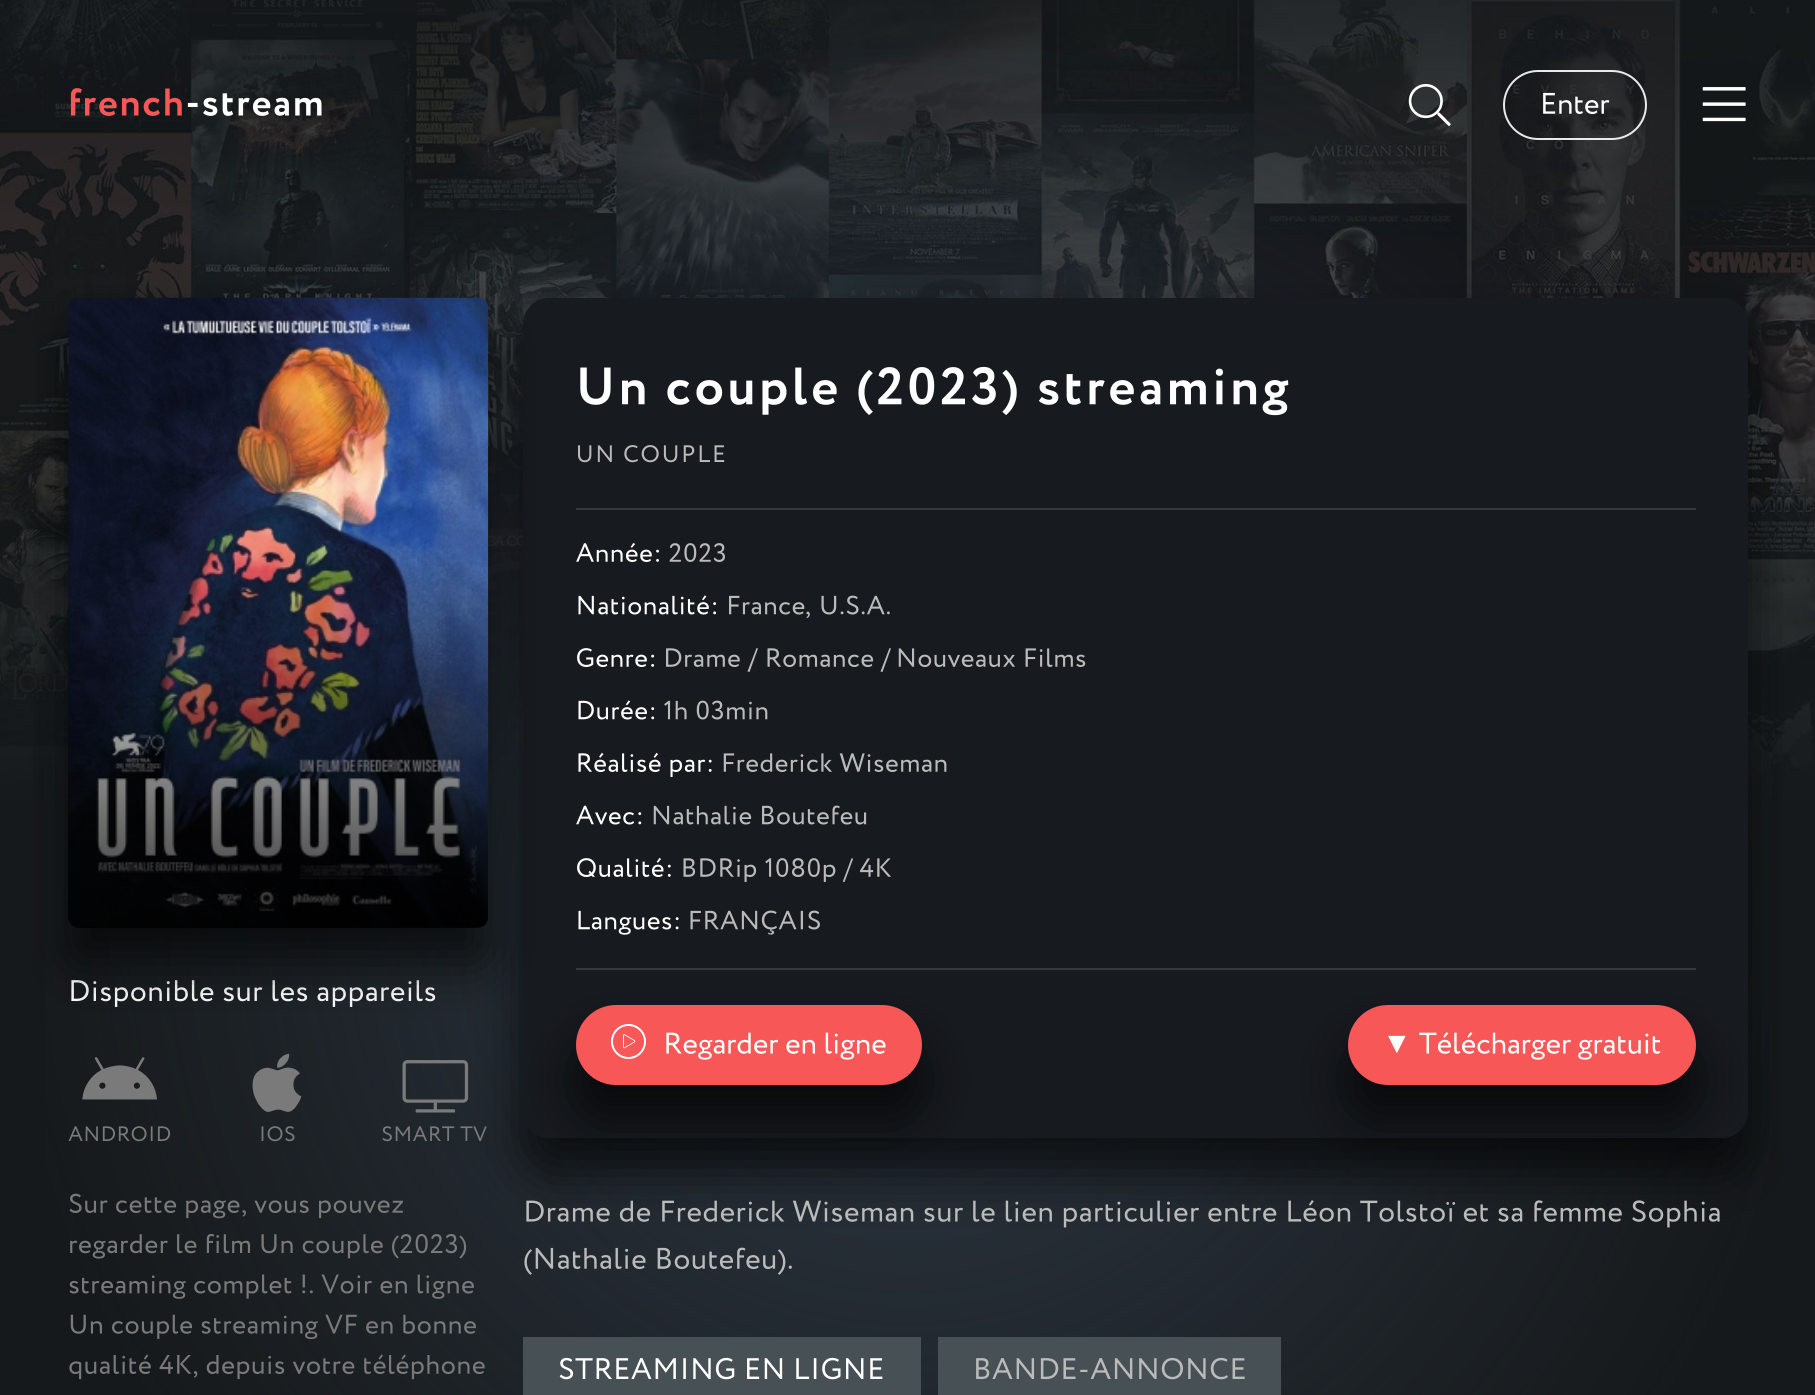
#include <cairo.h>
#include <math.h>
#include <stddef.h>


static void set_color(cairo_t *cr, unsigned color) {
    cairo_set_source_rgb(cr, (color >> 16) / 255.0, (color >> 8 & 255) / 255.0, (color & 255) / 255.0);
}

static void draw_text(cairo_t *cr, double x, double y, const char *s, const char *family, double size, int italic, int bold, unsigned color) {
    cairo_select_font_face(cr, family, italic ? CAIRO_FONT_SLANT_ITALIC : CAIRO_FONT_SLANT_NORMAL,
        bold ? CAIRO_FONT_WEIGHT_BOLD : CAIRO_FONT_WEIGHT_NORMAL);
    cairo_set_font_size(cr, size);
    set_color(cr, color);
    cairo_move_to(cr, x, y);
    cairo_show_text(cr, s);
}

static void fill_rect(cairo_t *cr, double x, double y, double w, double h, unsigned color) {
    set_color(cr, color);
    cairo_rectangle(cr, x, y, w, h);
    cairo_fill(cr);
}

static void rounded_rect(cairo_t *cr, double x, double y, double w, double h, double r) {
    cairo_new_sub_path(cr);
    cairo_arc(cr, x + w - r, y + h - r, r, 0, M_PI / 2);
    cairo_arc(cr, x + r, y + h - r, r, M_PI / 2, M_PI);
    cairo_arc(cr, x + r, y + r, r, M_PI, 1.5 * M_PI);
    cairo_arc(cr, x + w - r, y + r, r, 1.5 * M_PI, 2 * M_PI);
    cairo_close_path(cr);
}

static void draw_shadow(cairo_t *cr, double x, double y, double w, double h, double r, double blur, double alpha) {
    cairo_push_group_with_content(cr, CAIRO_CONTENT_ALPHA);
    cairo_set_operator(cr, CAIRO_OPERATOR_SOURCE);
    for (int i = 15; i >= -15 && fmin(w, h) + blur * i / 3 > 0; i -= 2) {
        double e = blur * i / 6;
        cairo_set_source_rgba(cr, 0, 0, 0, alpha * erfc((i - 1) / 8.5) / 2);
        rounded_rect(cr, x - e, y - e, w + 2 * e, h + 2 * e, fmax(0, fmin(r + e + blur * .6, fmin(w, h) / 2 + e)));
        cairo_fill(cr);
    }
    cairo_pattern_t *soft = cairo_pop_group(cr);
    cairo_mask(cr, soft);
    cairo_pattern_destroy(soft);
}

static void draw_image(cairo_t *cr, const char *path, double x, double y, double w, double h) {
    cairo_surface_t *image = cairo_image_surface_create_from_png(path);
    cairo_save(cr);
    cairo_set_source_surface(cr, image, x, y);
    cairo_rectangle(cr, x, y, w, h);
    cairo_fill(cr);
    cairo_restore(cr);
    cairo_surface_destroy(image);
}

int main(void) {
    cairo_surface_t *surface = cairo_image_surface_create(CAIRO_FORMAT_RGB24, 1815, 1395);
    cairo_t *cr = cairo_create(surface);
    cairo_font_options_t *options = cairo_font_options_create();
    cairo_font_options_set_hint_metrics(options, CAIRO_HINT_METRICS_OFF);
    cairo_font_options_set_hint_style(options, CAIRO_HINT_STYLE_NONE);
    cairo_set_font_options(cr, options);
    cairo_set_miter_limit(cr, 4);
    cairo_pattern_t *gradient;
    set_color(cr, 0x16191B);
    cairo_paint(cr);
    draw_image(cr, "assets/img1.png", 0, 0, 1815, 801);
    gradient = cairo_pattern_create_radial(908, 908, 0, 908, 908, 908);
    cairo_pattern_add_color_stop_rgba(gradient, 0, 0.18, 0.22, 0.267, 1);
    cairo_pattern_add_color_stop_rgba(gradient, 1, 0.18, 0.22, 0.267, 0);
    cairo_set_source(cr, gradient);
    cairo_pattern_destroy(gradient);
    cairo_rectangle(cr, 45, 49, 1726, 1346);
    cairo_fill(cr);
    draw_image(cr, "assets/img2.png", 70, 88, 112, 28);
    draw_image(cr, "assets/img3.png", 187, 93, 135, 23);
    draw_image(cr, "assets/img4.png", 1408, 84, 43, 42);
    rounded_rect(cr, 1504, 71, 142, 68, 34);
    cairo_set_source_rgba(cr, 1, 1, 1, 0.9);
    cairo_stroke(cr);
    draw_image(cr, "assets/img5.png", 1543, 92, 67, 23);
    draw_image(cr, "assets/img6.png", 1702, 87, 44, 35);
    draw_image(cr, "assets/img8.png", 71, 980, 365, 27);
    cairo_save(cr);
    cairo_rectangle(cr, 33, 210, 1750, 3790);
    cairo_clip(cr);
    set_color(cr, 0x000000);
    draw_shadow(cr, 523, 333, 1225, 840, 26, 26, 0.66);
    cairo_restore(cr);
    set_color(cr, 0x171A1F);
    rounded_rect(cr, 523, 298, 1225, 840, 26);
    cairo_fill(cr);
    cairo_save(cr);
    cairo_rectangle(cr, 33, 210, 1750, 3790);
    cairo_clip(cr);
    set_color(cr, 0x000000);
    draw_shadow(cr, 68, 333, 420, 630, 11, 26, 0.66);
    cairo_restore(cr);
    draw_image(cr, "assets/img7.png", 68, 297, 421, 631);
    gradient = cairo_pattern_create_linear(278, 928, 278, 550);
    cairo_pattern_add_color_stop_rgba(gradient, 0, 0, 0, 0, 0.8);
    cairo_pattern_add_color_stop_rgba(gradient, 1, 0, 0, 0, 0);
    cairo_set_source(cr, gradient);
    cairo_pattern_destroy(gradient);
    cairo_new_path(cr);
    cairo_move_to(cr, 68, 550);
    cairo_line_to(cr, 488, 550);
    cairo_line_to(cr, 488, 917);
    cairo_curve_to(cr, 488, 923, 483, 928, 477, 928);
    cairo_line_to(cr, 79, 928);
    cairo_curve_to(cr, 73, 928, 68, 923, 68, 917);
    cairo_close_path(cr);
    cairo_fill(cr);
    draw_image(cr, "assets/img9.png", 82, 1057, 75, 43);
    draw_image(cr, "assets/img10.png", 68, 1126, 103, 16);
    draw_image(cr, "assets/img11.png", 252, 1053, 50, 59);
    draw_image(cr, "assets/img12.png", 261, 1126, 34, 16);
    draw_image(cr, "assets/img13.png", 402, 1060, 67, 53);
    draw_image(cr, "assets/img14.png", 382, 1126, 105, 16);
    draw_image(cr, "assets/img15.png", 69, 1193, 334, 26);
    draw_image(cr, "assets/img16.png", 70, 1234, 397, 25);
    draw_image(cr, "assets/img17.png", 69, 1274, 405, 25);
    draw_image(cr, "assets/img18.png", 70, 1314, 406, 25);
    draw_image(cr, "assets/img19.png", 69, 1354, 416, 26);
    draw_image(cr, "assets/img20.png", 580, 366, 709, 50);
    draw_image(cr, "assets/img21.png", 578, 445, 147, 18);
    fill_rect(cr, 576, 508, 1120, 2, 0x35383C);
    draw_image(cr, "assets/img22.png", 576, 542, 83, 20);
    draw_image(cr, "assets/img23.png", 669, 543, 56, 19);
    draw_image(cr, "assets/img24.png", 578, 595, 139, 20);
    draw_image(cr, "assets/img25.png", 729, 595, 76, 20);
    draw_image(cr, "assets/img26.png", 806, 611, 4, 7);
    draw_image(cr, "assets/img27.png", 821, 595, 69, 20);
    draw_image(cr, "assets/img28.png", 577, 648, 78, 19);
    draw_image(cr, "assets/img29.png", 666, 648, 74, 19);
    set_color(cr, 0xBBBBBB);
    cairo_new_path(cr);
    cairo_move_to(cr, 747.5, 671.5);
    cairo_line_to(cr, 756.5, 648);
    cairo_line_to(cr, 758, 648.5);
    cairo_line_to(cr, 749.5, 672);
    cairo_close_path(cr);
    cairo_fill(cr);
    draw_image(cr, "assets/img30.png", 767, 648, 107, 19);
    cairo_new_path(cr);
    cairo_move_to(cr, 880.5, 671.5);
    cairo_line_to(cr, 889.5, 648);
    cairo_line_to(cr, 891, 648.5);
    cairo_line_to(cr, 882.5, 672);
    cairo_close_path(cr);
    cairo_fill(cr);
    draw_image(cr, "assets/img31.png", 898, 648, 188, 19);
    draw_image(cr, "assets/img32.png", 578, 700, 77, 20);
    draw_image(cr, "assets/img33.png", 664, 700, 104, 20);
    draw_image(cr, "assets/img34.png", 578, 752, 134, 25);
    draw_image(cr, "assets/img35.png", 723, 753, 224, 19);
    draw_image(cr, "assets/img36.png", 576, 805, 66, 20);
    draw_image(cr, "assets/img37.png", 653, 805, 214, 20);
    draw_image(cr, "assets/img38.png", 577, 857, 94, 20);
    draw_image(cr, "assets/img39.png", 683, 858, 208, 25);
    draw_image(cr, "assets/img40.png", 578, 910, 101, 25);
    draw_image(cr, "assets/img41.png", 690, 910, 130, 25);
    fill_rect(cr, 576, 968, 1120, 2, 0x35383C);
    set_color(cr, 0x000000);
    draw_shadow(cr, 576, 1040, 346, 80, 40, 26, 0.66);
    set_color(cr, 0xF75757);
    rounded_rect(cr, 576, 1005, 346, 80, 40);
    cairo_fill(cr);
    cairo_arc(cr, 628.5, 1041.5, 16.5, 0, 2 * M_PI);
    set_color(cr, 0xFFFFFF);
    cairo_stroke(cr);
    draw_image(cr, "assets/img42.png", 623, 1034, 13, 15);
    draw_image(cr, "assets/img43.png", 666, 1032, 220, 28);
    set_color(cr, 0x000000);
    draw_shadow(cr, 1348, 1040, 348, 80, 40, 26, 0.66);
    set_color(cr, 0xF75757);
    rounded_rect(cr, 1348, 1005, 348, 80, 40);
    cairo_fill(cr);
    draw_text(cr, 1382, 1053, "▼", "Liberation Sans", 30, 0, 0, 0xFFFFFF);
    draw_image(cr, "assets/img44.png", 1419, 1032, 242, 28);
    draw_image(cr, "assets/img45.png", 526, 1200, 1194, 28);
    draw_image(cr, "assets/img46.png", 524, 1247, 268, 28);
    fill_rect(cr, 523, 1337, 398, 58, 0x475055);
    draw_image(cr, "assets/img47.png", 559, 1357, 324, 23);
    fill_rect(cr, 938, 1337, 343, 58, 0x475055);
    draw_image(cr, "assets/img48.png", 976, 1357, 269, 23);
    cairo_surface_write_to_png(surface, "output.png");
    cairo_font_options_destroy(options);
    cairo_destroy(cr);
    cairo_surface_destroy(surface);
    return 0;
}
